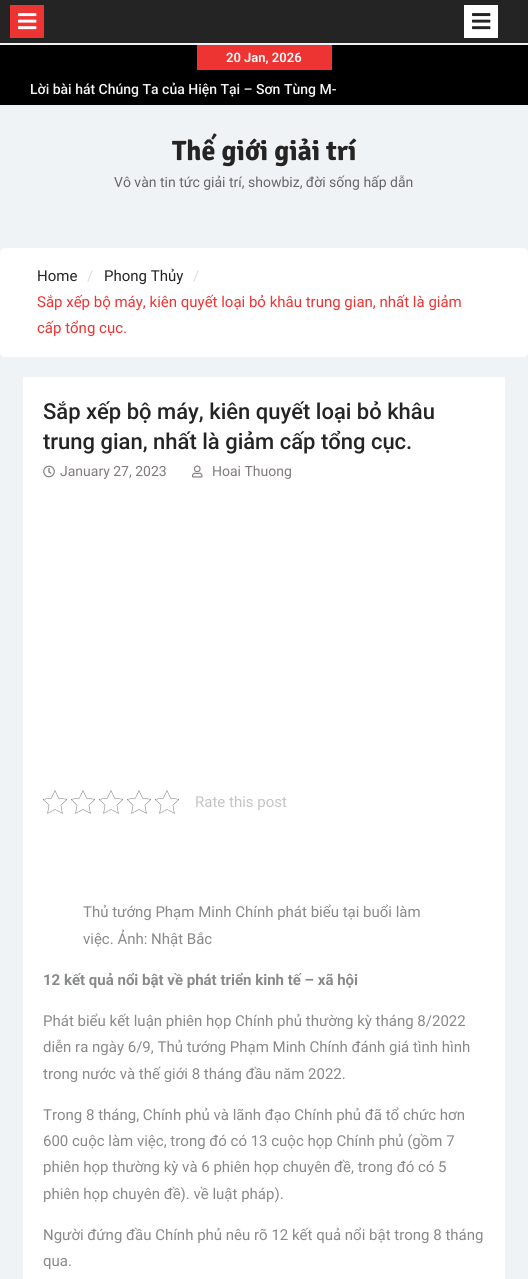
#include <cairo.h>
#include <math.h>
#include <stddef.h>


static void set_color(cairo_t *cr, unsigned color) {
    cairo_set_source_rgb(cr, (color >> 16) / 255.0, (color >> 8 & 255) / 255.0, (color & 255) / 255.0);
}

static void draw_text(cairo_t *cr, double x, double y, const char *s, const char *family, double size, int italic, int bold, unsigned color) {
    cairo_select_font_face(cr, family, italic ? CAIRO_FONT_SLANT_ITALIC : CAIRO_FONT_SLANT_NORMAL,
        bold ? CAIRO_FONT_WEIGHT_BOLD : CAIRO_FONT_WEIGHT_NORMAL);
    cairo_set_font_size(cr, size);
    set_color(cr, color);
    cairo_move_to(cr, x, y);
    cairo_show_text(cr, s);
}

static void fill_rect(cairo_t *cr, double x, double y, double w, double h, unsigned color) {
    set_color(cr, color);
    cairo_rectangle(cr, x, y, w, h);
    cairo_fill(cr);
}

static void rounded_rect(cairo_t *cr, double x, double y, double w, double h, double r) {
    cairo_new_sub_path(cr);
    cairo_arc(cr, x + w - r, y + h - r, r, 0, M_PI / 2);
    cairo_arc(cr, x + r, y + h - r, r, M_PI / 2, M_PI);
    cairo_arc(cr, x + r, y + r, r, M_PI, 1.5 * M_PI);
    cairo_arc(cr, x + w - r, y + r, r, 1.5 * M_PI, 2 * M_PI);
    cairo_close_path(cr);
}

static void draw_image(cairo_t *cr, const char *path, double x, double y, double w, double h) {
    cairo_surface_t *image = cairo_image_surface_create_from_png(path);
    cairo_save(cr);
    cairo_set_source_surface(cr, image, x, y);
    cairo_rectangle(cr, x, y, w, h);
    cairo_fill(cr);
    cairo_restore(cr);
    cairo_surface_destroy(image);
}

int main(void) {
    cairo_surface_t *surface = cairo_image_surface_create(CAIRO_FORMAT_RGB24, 528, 1279);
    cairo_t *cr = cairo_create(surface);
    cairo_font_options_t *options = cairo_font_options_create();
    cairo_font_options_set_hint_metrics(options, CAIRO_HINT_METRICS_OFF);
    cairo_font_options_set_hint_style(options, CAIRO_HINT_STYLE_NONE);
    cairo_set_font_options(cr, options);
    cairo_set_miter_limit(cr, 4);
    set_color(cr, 0xF0F3F5);
    cairo_paint(cr);
    fill_rect(cr, 0, 0, 528, 43, 0x242424);
    fill_rect(cr, 10, 5, 34, 33, 0xEE3333);
    draw_image(cr, "assets/img1.png", 18, 13, 19, 17);
    fill_rect(cr, 464, 5, 34, 33, 0xFFFFFF);
    draw_image(cr, "assets/img2.png", 472, 13, 19, 17);
    fill_rect(cr, 0, 45, 528, 60, 0x000000);
    fill_rect(cr, 197, 45, 135, 25, 0xEE3333);
    draw_text(cr, 226, 62, "20 Jan, 2026", "Roboto SemiBold", 13, 0, 0, 0xFFFFFF);
    draw_text(cr, 30, 94, "Lời bài hát Chúng Ta của Hiện Tại – Sơn Tùng M-", "Roboto Medium", 14, 0, 0, 0xF5F5F5);
    draw_text(cr, 172, 160, "Thế giới giải trí", "Signika", 28, 0, 1, 0x242424);
    draw_text(cr, 114, 187, "Vô vàn tin tức giải trí, showbiz, đời sống hấp dẫn", "Roboto", 14, 0, 0, 0x666666);
    set_color(cr, 0xFFFFFF);
    rounded_rect(cr, 0, 248, 528, 109, 5);
    cairo_fill(cr);
    draw_text(cr, 37, 281, "Home", "Roboto", 15, 0, 0, 0x242424);
    draw_text(cr, 87, 281, "/", "Roboto", 15, 0, 0, 0xDDDDDD);
    draw_text(cr, 104, 281, "Phong Thủy", "Roboto", 15, 0, 0, 0x242424);
    draw_text(cr, 193, 281, "/", "Roboto", 15, 0, 0, 0xDDDDDD);
    draw_text(cr, 37, 307, "Sắp xếp bộ máy, kiên quyết loại bỏ khâu trung gian, nhất là giảm", "Roboto", 15, 0, 0, 0xEE3333);
    draw_text(cr, 37, 333, "cấp tổng cục.", "Roboto", 15, 0, 0, 0xEE3333);
    fill_rect(cr, 23, 377, 482, 902, 0xFFFFFF);
    draw_text(cr, 43, 419, "Sắp xếp bộ máy, kiên quyết loại bỏ khâu", "Roboto Medium", 22, 0, 0, 0x242424);
    draw_text(cr, 43, 449, "trung gian, nhất là giảm cấp tổng cục.", "Roboto Medium", 22, 0, 0, 0x242424);
    draw_image(cr, "assets/img3.png", 43, 465, 12, 13);
    draw_text(cr, 60, 476, "January 27, 2023", "Roboto", 14, 0, 0, 0x807A7A);
    draw_image(cr, "assets/img4.png", 192, 465, 11, 13);
    draw_text(cr, 212, 476, "Hoai Thuong", "Roboto", 14, 0, 0, 0x807A7A);
    draw_image(cr, "assets/img5.png", 43, 790, 24, 24);
    draw_image(cr, "assets/img5.png", 71, 790, 24, 24);
    draw_image(cr, "assets/img5.png", 99, 790, 24, 24);
    draw_image(cr, "assets/img5.png", 127, 790, 24, 24);
    draw_image(cr, "assets/img5.png", 155, 790, 24, 24);
    draw_text(cr, 195, 807, "Rate this post", "Roboto", 15, 0, 0, 0xC4C4C5);
    draw_text(cr, 83, 917, "Thủ tướng Phạm Minh Chính phát biểu tại buổi làm", "Roboto", 15, 0, 0, 0x88898A);
    draw_text(cr, 83, 944, "việc. Ảnh: Nhật Bắc", "Roboto", 15, 0, 0, 0x88898A);
    draw_text(cr, 43, 985, "12 kết quả nổi bật về phát triển kinh tế – xã hội", "Roboto", 15, 0, 1, 0x88898A);
    draw_text(cr, 43, 1026, "Phát biểu kết luận phiên họp Chính phủ thường kỳ tháng 8/2022", "Roboto", 15, 0, 0, 0x88898A);
    draw_text(cr, 43, 1052, "diễn ra ngày 6/9, Thủ tướng Phạm Minh Chính đánh giá tình hình", "Roboto", 15, 0, 0, 0x88898A);
    draw_text(cr, 43, 1079, "trong nước và thế giới 8 tháng đầu năm 2022.", "Roboto", 15, 0, 0, 0x88898A);
    draw_text(cr, 43, 1120, "Trong 8 tháng, Chính phủ và lãnh đạo Chính phủ đã tổ chức hơn", "Roboto", 15, 0, 0, 0x88898A);
    draw_text(cr, 43, 1146, "600 cuộc làm việc, trong đó có 13 cuộc họp Chính phủ (gồm 7", "Roboto", 15, 0, 0, 0x88898A);
    draw_text(cr, 43, 1172, "phiên họp thường kỳ và 6 phiên họp chuyên đề, trong đó có 5", "Roboto", 15, 0, 0, 0x88898A);
    draw_text(cr, 43, 1199, "phiên họp chuyên đề). về luật pháp).", "Roboto", 15, 0, 0, 0x88898A);
    draw_text(cr, 43, 1240, "Người đứng đầu Chính phủ nêu rõ 12 kết quả nổi bật trong 8 tháng", "Roboto", 15, 0, 0, 0x88898A);
    draw_text(cr, 43, 1266, "qua.", "Roboto", 15, 0, 0, 0x88898A);
    cairo_surface_write_to_png(surface, "output.png");
    cairo_font_options_destroy(options);
    cairo_destroy(cr);
    cairo_surface_destroy(surface);
    return 0;
}
